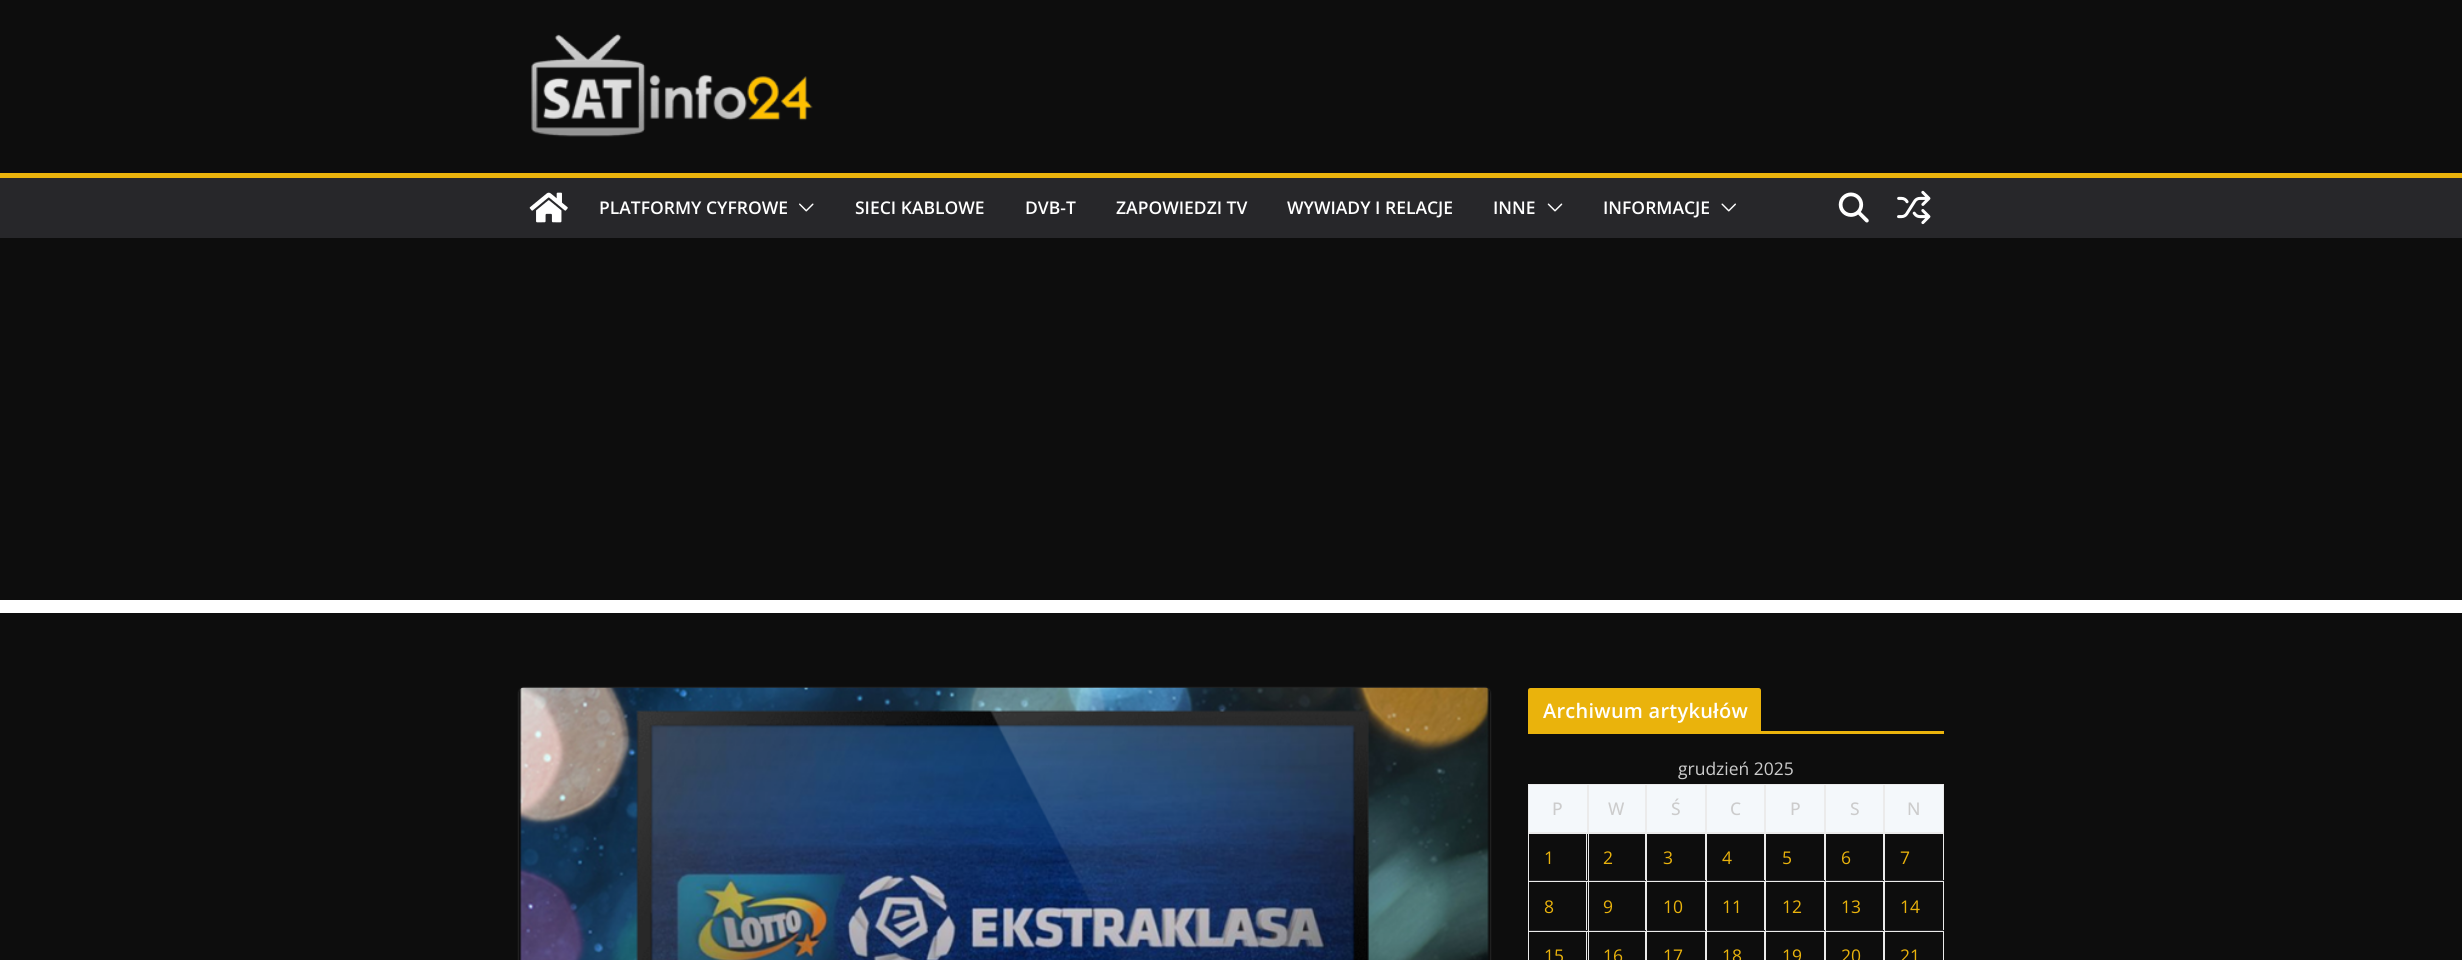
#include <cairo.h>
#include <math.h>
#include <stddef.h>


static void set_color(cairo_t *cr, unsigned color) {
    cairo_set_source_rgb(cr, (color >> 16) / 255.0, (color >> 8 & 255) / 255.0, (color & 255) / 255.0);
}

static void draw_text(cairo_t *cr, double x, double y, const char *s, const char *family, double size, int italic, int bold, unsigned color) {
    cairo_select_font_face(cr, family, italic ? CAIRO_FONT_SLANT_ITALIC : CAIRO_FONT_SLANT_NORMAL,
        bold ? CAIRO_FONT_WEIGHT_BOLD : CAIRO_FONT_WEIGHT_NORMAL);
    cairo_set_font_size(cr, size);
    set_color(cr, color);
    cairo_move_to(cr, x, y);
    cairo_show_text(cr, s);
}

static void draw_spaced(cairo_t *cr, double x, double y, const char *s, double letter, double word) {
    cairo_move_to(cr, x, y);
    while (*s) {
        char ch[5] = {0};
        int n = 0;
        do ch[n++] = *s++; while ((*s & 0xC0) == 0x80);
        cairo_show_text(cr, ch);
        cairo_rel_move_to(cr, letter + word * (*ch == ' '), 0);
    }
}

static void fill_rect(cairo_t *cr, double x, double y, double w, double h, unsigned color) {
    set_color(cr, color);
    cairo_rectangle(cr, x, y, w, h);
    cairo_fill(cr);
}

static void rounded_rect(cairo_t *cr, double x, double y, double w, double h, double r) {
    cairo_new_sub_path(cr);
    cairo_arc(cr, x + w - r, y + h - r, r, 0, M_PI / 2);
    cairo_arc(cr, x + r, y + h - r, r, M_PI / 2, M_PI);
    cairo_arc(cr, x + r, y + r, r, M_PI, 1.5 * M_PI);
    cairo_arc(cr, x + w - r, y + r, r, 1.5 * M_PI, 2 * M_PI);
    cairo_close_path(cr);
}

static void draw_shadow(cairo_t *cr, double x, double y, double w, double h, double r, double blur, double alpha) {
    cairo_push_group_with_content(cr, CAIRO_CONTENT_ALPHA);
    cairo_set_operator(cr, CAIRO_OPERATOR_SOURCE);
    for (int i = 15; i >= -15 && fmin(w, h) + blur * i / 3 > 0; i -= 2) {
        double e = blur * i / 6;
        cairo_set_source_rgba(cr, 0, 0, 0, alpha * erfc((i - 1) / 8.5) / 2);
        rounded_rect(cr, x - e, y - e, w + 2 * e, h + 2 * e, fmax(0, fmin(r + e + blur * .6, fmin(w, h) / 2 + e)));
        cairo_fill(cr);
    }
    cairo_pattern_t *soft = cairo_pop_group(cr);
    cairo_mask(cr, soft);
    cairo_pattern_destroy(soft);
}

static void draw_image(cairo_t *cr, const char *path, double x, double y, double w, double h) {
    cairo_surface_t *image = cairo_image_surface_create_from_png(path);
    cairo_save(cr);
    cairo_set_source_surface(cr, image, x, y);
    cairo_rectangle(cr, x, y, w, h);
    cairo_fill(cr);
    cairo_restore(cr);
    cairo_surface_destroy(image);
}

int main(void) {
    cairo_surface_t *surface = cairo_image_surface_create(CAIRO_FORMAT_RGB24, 2462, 960);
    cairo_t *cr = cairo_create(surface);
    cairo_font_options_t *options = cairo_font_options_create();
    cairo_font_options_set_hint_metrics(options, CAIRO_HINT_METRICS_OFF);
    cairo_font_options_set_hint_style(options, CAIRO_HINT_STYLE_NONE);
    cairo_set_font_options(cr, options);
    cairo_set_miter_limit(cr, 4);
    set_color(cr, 0x0D0D0D);
    cairo_paint(cr);
    fill_rect(cr, 0, 600, 2462, 13, 0xFFFFFF);
    draw_image(cr, "assets/img1.png", 531, 33, 282, 104);
    fill_rect(cr, 0, 178, 2462, 60, 0x27272A);
    fill_rect(cr, 0, 173, 2462, 5, 0xEAB30C);
    draw_image(cr, "assets/img2.png", 529, 192, 39, 31);
    draw_text(cr, 599, 214, "PLATFORMY CYFROWE", "Open Sans SemiBold", 17.5, 0, 0, 0xFFFFFF);
    draw_image(cr, "assets/img3.png", 799, 203, 15, 9);
    draw_text(cr, 855, 214, "SIECI KABLOWE", "Open Sans SemiBold", 17.5, 0, 0, 0xFFFFFF);
    draw_text(cr, 1025, 214, "DVB-T", "Open Sans SemiBold", 17.5, 0, 0, 0xFFFFFF);
    draw_text(cr, 1116, 214, "ZAPOWIEDZI TV", "Open Sans SemiBold", 17.5, 0, 0, 0xFFFFFF);
    draw_text(cr, 1287, 214, "WYWIADY I RELACJE", "Open Sans SemiBold", 17.5, 0, 0, 0xFFFFFF);
    draw_text(cr, 1493, 214, "INNE", "Open Sans SemiBold", 17.5, 0, 0, 0xFFFFFF);
    draw_image(cr, "assets/img4.png", 1547, 203, 16, 9);
    draw_text(cr, 1603, 214, "INFORMACJE", "Open Sans SemiBold", 17.5, 0, 0, 0xFFFFFF);
    draw_image(cr, "assets/img5.png", 1721, 203, 15, 9);
    draw_image(cr, "assets/img6.png", 1838, 192, 31, 31);
    draw_image(cr, "assets/img7.png", 1897, 190, 34, 35);
    cairo_save(cr);
    cairo_set_fill_rule(cr, CAIRO_FILL_RULE_EVEN_ODD);
    cairo_new_path(cr);
    cairo_move_to(cr, 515, 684);
    cairo_line_to(cr, 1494, 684);
    cairo_line_to(cr, 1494, 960);
    cairo_line_to(cr, 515, 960);
    cairo_close_path(cr);
    cairo_move_to(cr, 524, 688);
    cairo_line_to(cr, 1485, 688);
    cairo_curve_to(cr, 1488, 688, 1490, 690, 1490, 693);
    cairo_line_to(cr, 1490, 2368);
    cairo_curve_to(cr, 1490, 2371, 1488, 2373, 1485, 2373);
    cairo_line_to(cr, 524, 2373);
    cairo_curve_to(cr, 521, 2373, 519, 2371, 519, 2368);
    cairo_line_to(cr, 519, 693);
    cairo_curve_to(cr, 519, 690, 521, 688, 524, 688);
    cairo_close_path(cr);
    cairo_clip(cr);
    set_color(cr, 0xFFFFFF);
    draw_shadow(cr, 519, 688, 971, 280, 5, 1, 0.24);
    cairo_restore(cr);
    draw_image(cr, "assets/img8.png", 519, 687, 970, 273);
    fill_rect(cr, 1528, 731, 416, 3, 0xEAB30C);
    cairo_new_path(cr);
    cairo_move_to(cr, 1530.5, 688);
    cairo_line_to(cr, 1758.5, 688);
    cairo_curve_to(cr, 1760, 688, 1761, 689, 1761, 690.5);
    cairo_line_to(cr, 1761, 731);
    cairo_line_to(cr, 1528, 731);
    cairo_line_to(cr, 1528, 690.5);
    cairo_curve_to(cr, 1528, 689, 1529, 688, 1530.5, 688);
    cairo_close_path(cr);
    cairo_fill(cr);
    cairo_set_font_size(cr, 20);
    set_color(cr, 0xFFFFFF);
    draw_spaced(cr, 1543, 718, "Archiwum artykułów", 0.25, 0);
    draw_text(cr, 1678, 775, "grudzień 2025", "Open Sans", 17.5, 0, 0, 0xCCCCCC);
    fill_rect(cr, 1529, 785, 414, 47, 0xF4F8FB);
    cairo_rectangle(cr, 1528.5, 784.5, 59, 48);
    set_color(cr, 0xEBEBEB);
    cairo_set_line_width(cr, 1);
    cairo_stroke(cr);
    draw_text(cr, 1552, 815, "P", "Open Sans Medium", 17.5, 0, 0, 0xCCCCCC);
    cairo_rectangle(cr, 1588.5, 784.5, 57, 48);
    set_color(cr, 0xEBEBEB);
    cairo_stroke(cr);
    draw_text(cr, 1608, 815, "W", "Open Sans Medium", 17.5, 0, 0, 0xCCCCCC);
    cairo_rectangle(cr, 1646.5, 784.5, 59, 48);
    set_color(cr, 0xEBEBEB);
    cairo_stroke(cr);
    draw_text(cr, 1671, 815, "Ś", "Open Sans Medium", 17.5, 0, 0, 0xCCCCCC);
    cairo_rectangle(cr, 1706.5, 784.5, 58, 48);
    set_color(cr, 0xEBEBEB);
    cairo_stroke(cr);
    draw_text(cr, 1730, 815, "C", "Open Sans Medium", 17.5, 0, 0, 0xCCCCCC);
    cairo_rectangle(cr, 1765.5, 784.5, 59, 48);
    set_color(cr, 0xEBEBEB);
    cairo_stroke(cr);
    draw_text(cr, 1790, 815, "P", "Open Sans Medium", 17.5, 0, 0, 0xCCCCCC);
    cairo_rectangle(cr, 1825.5, 784.5, 58, 48);
    set_color(cr, 0xEBEBEB);
    cairo_stroke(cr);
    draw_text(cr, 1850, 815, "S", "Open Sans Medium", 17.5, 0, 0, 0xCCCCCC);
    cairo_rectangle(cr, 1884.5, 784.5, 59, 48);
    set_color(cr, 0xEBEBEB);
    cairo_stroke(cr);
    draw_text(cr, 1907, 815, "N", "Open Sans Medium", 17.5, 0, 0, 0xCCCCCC);
    fill_rect(cr, 1528, 833, 416, 1, 0xEBEBEB);
    fill_rect(cr, 1586, 833, 1, 48, 0xEBEBEB);
    fill_rect(cr, 1528, 880, 60, 1, 0x27272A);
    fill_rect(cr, 1528, 833, 1, 48, 0xEBEBEB);
    draw_text(cr, 1544, 864, "1", "Open Sans", 17.5, 0, 0, 0xEAB30C);
    fill_rect(cr, 1645, 833, 1, 48, 0xEBEBEB);
    fill_rect(cr, 1588, 880, 58, 1, 0x27272A);
    fill_rect(cr, 1588, 833, 1, 48, 0xEBEBEB);
    draw_text(cr, 1603, 864, "2", "Open Sans", 17.5, 0, 0, 0xEAB30C);
    fill_rect(cr, 1705, 833, 1, 48, 0xEBEBEB);
    fill_rect(cr, 1646, 880, 60, 1, 0x27272A);
    fill_rect(cr, 1646, 833, 1, 48, 0xEBEBEB);
    draw_text(cr, 1663, 864, "3", "Open Sans", 17.5, 0, 0, 0xEAB30C);
    fill_rect(cr, 1764, 833, 1, 48, 0xEBEBEB);
    fill_rect(cr, 1706, 880, 59, 1, 0x27272A);
    fill_rect(cr, 1706, 833, 1, 48, 0xEBEBEB);
    draw_text(cr, 1722, 864, "4", "Open Sans", 17.5, 0, 0, 0xEAB30C);
    fill_rect(cr, 1824, 833, 1, 48, 0xEBEBEB);
    fill_rect(cr, 1765, 880, 60, 1, 0x27272A);
    fill_rect(cr, 1765, 833, 1, 48, 0xEBEBEB);
    draw_text(cr, 1782, 864, "5", "Open Sans", 17.5, 0, 0, 0xEAB30C);
    fill_rect(cr, 1883, 833, 1, 48, 0xEBEBEB);
    fill_rect(cr, 1825, 880, 59, 1, 0x27272A);
    fill_rect(cr, 1825, 833, 1, 48, 0xEBEBEB);
    draw_text(cr, 1841, 864, "6", "Open Sans", 17.5, 0, 0, 0xEAB30C);
    fill_rect(cr, 1943, 833, 1, 48, 0xEBEBEB);
    fill_rect(cr, 1884, 880, 60, 1, 0x27272A);
    fill_rect(cr, 1884, 833, 1, 48, 0xEBEBEB);
    draw_text(cr, 1900, 864, "7", "Open Sans", 17.5, 0, 0, 0xEAB30C);
    fill_rect(cr, 1528, 881, 416, 1, 0xEBEBEB);
    fill_rect(cr, 1586, 881, 1, 50, 0xEBEBEB);
    fill_rect(cr, 1528, 930, 60, 1, 0x27272A);
    fill_rect(cr, 1528, 881, 1, 50, 0xEBEBEB);
    draw_text(cr, 1544, 913, "8", "Open Sans", 17.5, 0, 0, 0xEAB30C);
    fill_rect(cr, 1645, 881, 1, 50, 0xEBEBEB);
    fill_rect(cr, 1588, 930, 58, 1, 0x27272A);
    fill_rect(cr, 1588, 881, 1, 50, 0xEBEBEB);
    draw_text(cr, 1603, 913, "9", "Open Sans", 17.5, 0, 0, 0xEAB30C);
    fill_rect(cr, 1705, 881, 1, 50, 0xEBEBEB);
    fill_rect(cr, 1646, 930, 60, 1, 0x27272A);
    fill_rect(cr, 1646, 881, 1, 50, 0xEBEBEB);
    draw_text(cr, 1663, 913, "10", "Open Sans", 17.5, 0, 0, 0xEAB30C);
    fill_rect(cr, 1764, 881, 1, 50, 0xEBEBEB);
    fill_rect(cr, 1706, 930, 59, 1, 0x27272A);
    fill_rect(cr, 1706, 881, 1, 50, 0xEBEBEB);
    draw_text(cr, 1722, 913, "11", "Open Sans", 17.5, 0, 0, 0xEAB30C);
    fill_rect(cr, 1824, 881, 1, 50, 0xEBEBEB);
    fill_rect(cr, 1765, 930, 60, 1, 0x27272A);
    fill_rect(cr, 1765, 881, 1, 50, 0xEBEBEB);
    draw_text(cr, 1782, 913, "12", "Open Sans", 17.5, 0, 0, 0xEAB30C);
    fill_rect(cr, 1883, 881, 1, 50, 0xEBEBEB);
    fill_rect(cr, 1825, 930, 59, 1, 0x27272A);
    fill_rect(cr, 1825, 881, 1, 50, 0xEBEBEB);
    draw_text(cr, 1841, 913, "13", "Open Sans", 17.5, 0, 0, 0xEAB30C);
    fill_rect(cr, 1943, 881, 1, 50, 0xEBEBEB);
    fill_rect(cr, 1884, 930, 60, 1, 0x27272A);
    fill_rect(cr, 1884, 881, 1, 50, 0xEBEBEB);
    draw_text(cr, 1900, 913, "14", "Open Sans", 17.5, 0, 0, 0xEAB30C);
    fill_rect(cr, 1528, 931, 416, 1, 0xEBEBEB);
    fill_rect(cr, 1586, 931, 1, 29, 0xEBEBEB);
    fill_rect(cr, 1528, 931, 1, 29, 0xEBEBEB);
    draw_text(cr, 1544, 962, "15", "Open Sans", 17.5, 0, 0, 0xEAB30C);
    fill_rect(cr, 1645, 931, 2, 29, 0xEBEBEB);
    fill_rect(cr, 1588, 931, 1, 29, 0xEBEBEB);
    draw_text(cr, 1603, 962, "16", "Open Sans", 17.5, 0, 0, 0xEAB30C);
    fill_rect(cr, 1705, 931, 2, 29, 0xEBEBEB);
    draw_text(cr, 1663, 962, "17", "Open Sans", 17.5, 0, 0, 0xEAB30C);
    fill_rect(cr, 1764, 931, 2, 29, 0xEBEBEB);
    draw_text(cr, 1722, 962, "18", "Open Sans", 17.5, 0, 0, 0xEAB30C);
    fill_rect(cr, 1824, 931, 2, 29, 0xEBEBEB);
    draw_text(cr, 1782, 962, "19", "Open Sans", 17.5, 0, 0, 0xEAB30C);
    fill_rect(cr, 1883, 931, 2, 29, 0xEBEBEB);
    draw_text(cr, 1841, 962, "20", "Open Sans", 17.5, 0, 0, 0xEAB30C);
    fill_rect(cr, 1943, 931, 1, 29, 0xEBEBEB);
    draw_text(cr, 1900, 962, "21", "Open Sans", 17.5, 0, 0, 0xEAB30C);
    cairo_surface_write_to_png(surface, "output.png");
    cairo_font_options_destroy(options);
    cairo_destroy(cr);
    cairo_surface_destroy(surface);
    return 0;
}
